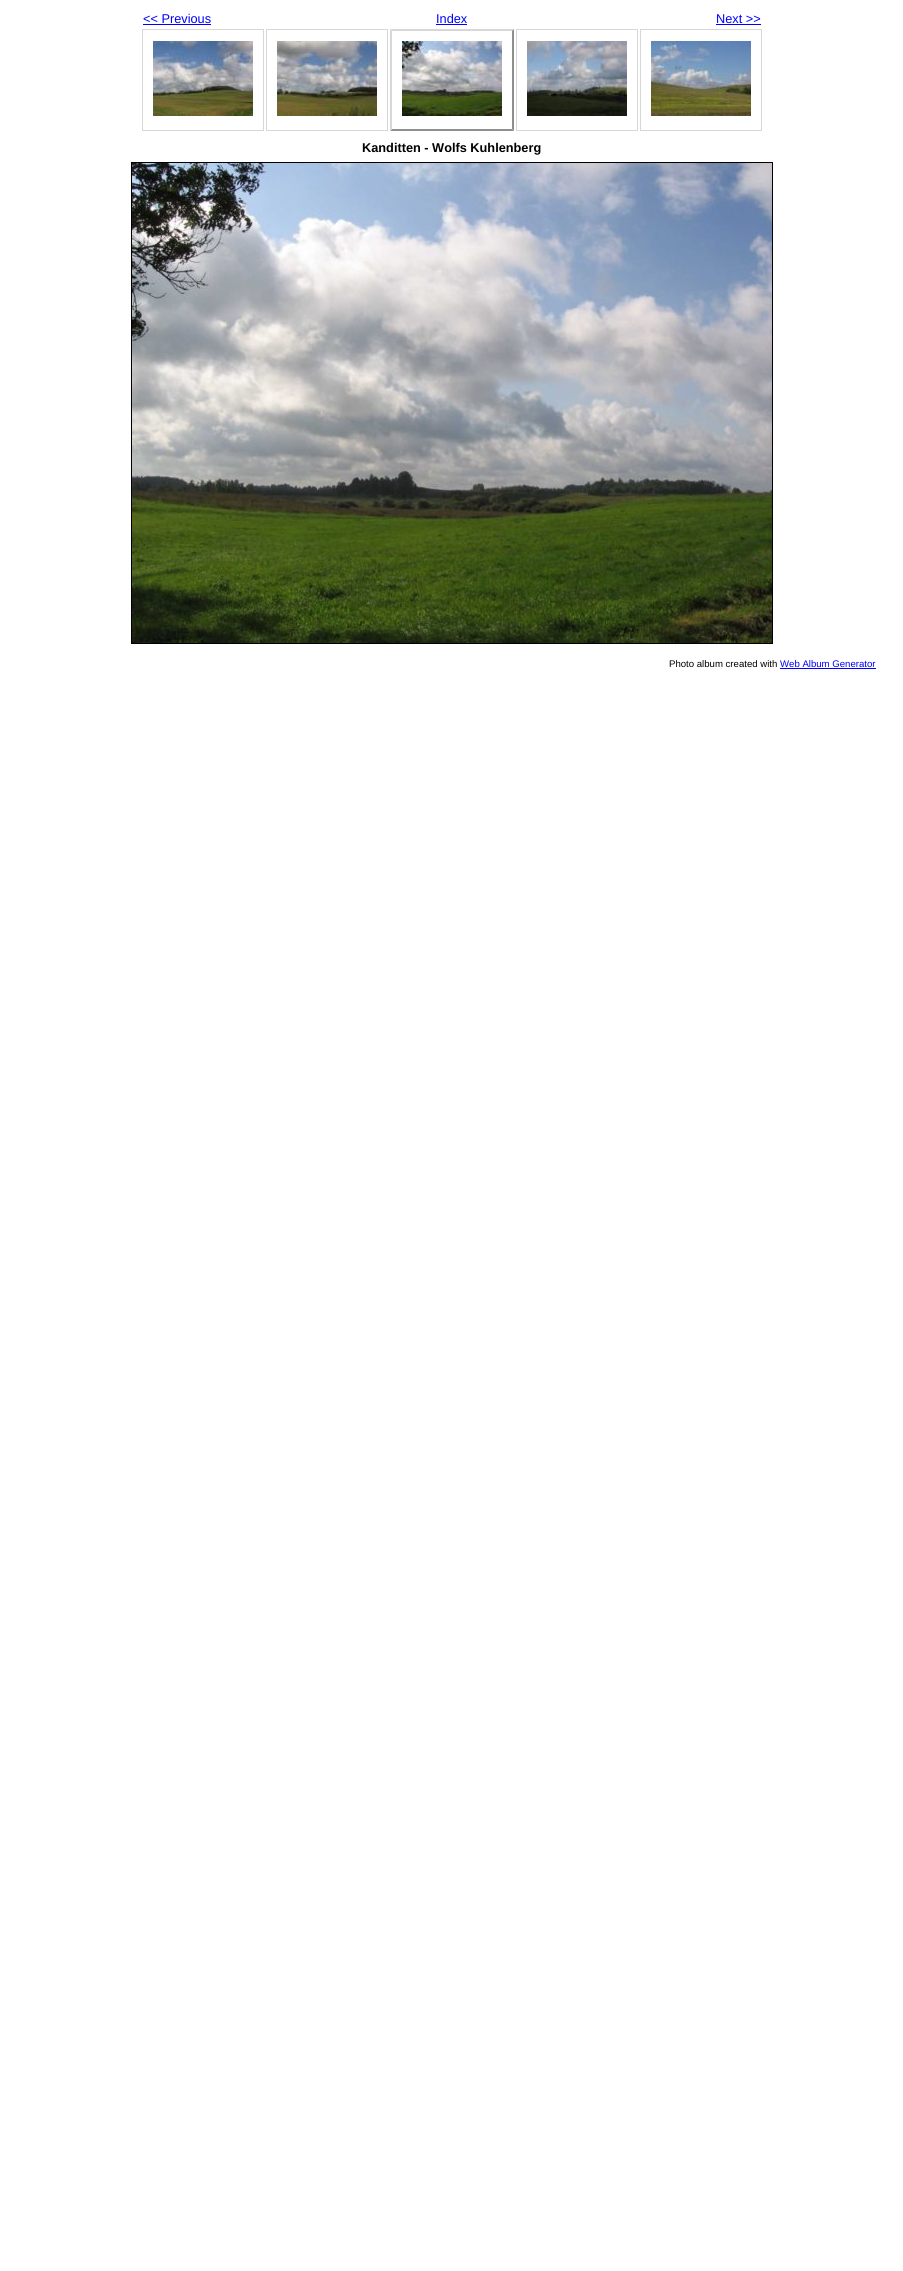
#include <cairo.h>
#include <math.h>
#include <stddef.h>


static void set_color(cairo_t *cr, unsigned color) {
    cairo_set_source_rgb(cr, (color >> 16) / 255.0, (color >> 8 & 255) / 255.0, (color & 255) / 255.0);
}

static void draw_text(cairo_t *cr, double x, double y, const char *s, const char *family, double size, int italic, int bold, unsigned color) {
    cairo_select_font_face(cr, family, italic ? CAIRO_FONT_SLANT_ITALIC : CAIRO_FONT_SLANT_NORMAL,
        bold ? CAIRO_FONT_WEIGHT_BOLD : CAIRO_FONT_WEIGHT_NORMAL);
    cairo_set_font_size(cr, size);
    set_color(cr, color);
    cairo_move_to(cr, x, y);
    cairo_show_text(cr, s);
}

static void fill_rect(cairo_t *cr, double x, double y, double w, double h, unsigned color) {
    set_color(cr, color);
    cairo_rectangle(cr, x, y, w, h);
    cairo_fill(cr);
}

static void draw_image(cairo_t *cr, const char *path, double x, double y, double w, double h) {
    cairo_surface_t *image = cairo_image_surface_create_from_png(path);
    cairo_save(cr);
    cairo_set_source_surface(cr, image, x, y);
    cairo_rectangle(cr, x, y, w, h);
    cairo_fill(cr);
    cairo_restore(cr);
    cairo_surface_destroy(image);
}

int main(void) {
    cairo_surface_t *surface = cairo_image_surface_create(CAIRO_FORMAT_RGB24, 903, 2271);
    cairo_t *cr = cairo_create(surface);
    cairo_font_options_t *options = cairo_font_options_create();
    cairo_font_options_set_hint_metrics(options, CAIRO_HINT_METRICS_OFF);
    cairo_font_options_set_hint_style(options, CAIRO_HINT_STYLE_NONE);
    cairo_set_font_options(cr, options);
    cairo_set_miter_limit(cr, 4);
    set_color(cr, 0xFFFFFF);
    cairo_paint(cr);
    draw_text(cr, 143, 23, "<< Previous", "Liberation Sans", 12.75, 0, 0, 0x0000FF);
    fill_rect(cr, 143, 24, 68, 1, 0x0000FF);
    draw_text(cr, 436, 23, "Index", "Liberation Sans", 12.75, 0, 0, 0x0000FF);
    fill_rect(cr, 436, 24, 31, 1, 0x0000FF);
    draw_text(cr, 716, 23, "Next >>", "Liberation Sans", 12.75, 0, 0, 0x0000FF);
    fill_rect(cr, 716, 24, 45, 1, 0x0000FF);
    cairo_rectangle(cr, 142.5, 29.5, 121, 101);
    set_color(cr, 0xD7D7D7);
    cairo_set_line_width(cr, 1);
    cairo_stroke(cr);
    draw_image(cr, "assets/img1.png", 153, 41, 100, 75);
    cairo_rectangle(cr, 266.5, 29.5, 121, 101);
    cairo_stroke(cr);
    draw_image(cr, "assets/img2.png", 277, 41, 100, 75);
    cairo_new_path(cr);
    cairo_move_to(cr, 390, 29);
    cairo_line_to(cr, 514, 29);
    cairo_line_to(cr, 512, 31);
    cairo_line_to(cr, 392, 31);
    cairo_close_path(cr);
    cairo_fill(cr);
    set_color(cr, 0x8F8F8F);
    cairo_new_path(cr);
    cairo_move_to(cr, 514, 29);
    cairo_line_to(cr, 514, 131);
    cairo_line_to(cr, 512, 129);
    cairo_line_to(cr, 512, 31);
    cairo_close_path(cr);
    cairo_fill(cr);
    cairo_new_path(cr);
    cairo_move_to(cr, 514, 131);
    cairo_line_to(cr, 390, 131);
    cairo_line_to(cr, 392, 129);
    cairo_line_to(cr, 512, 129);
    cairo_close_path(cr);
    cairo_fill(cr);
    set_color(cr, 0xD7D7D7);
    cairo_new_path(cr);
    cairo_move_to(cr, 390, 131);
    cairo_line_to(cr, 390, 29);
    cairo_line_to(cr, 392, 31);
    cairo_line_to(cr, 392, 129);
    cairo_close_path(cr);
    cairo_fill(cr);
    draw_image(cr, "assets/img3.png", 402, 41, 100, 75);
    cairo_rectangle(cr, 516.5, 29.5, 121, 101);
    cairo_stroke(cr);
    draw_image(cr, "assets/img4.png", 527, 41, 100, 75);
    cairo_rectangle(cr, 640.5, 29.5, 121, 101);
    cairo_stroke(cr);
    draw_image(cr, "assets/img5.png", 651, 41, 100, 75);
    draw_text(cr, 362, 152, "Kanditten - Wolfs Kuhlenberg", "Liberation Sans", 12.75, 0, 1, 0x000000);
    cairo_rectangle(cr, 131.5, 162.5, 641, 481);
    cairo_stroke(cr);
    draw_image(cr, "assets/img6.png", 132, 163, 640, 480);
    draw_text(cr, 669, 667, "Photo album created with", "Liberation Sans", 9.6, 0, 0, 0x000000);
    draw_text(cr, 780, 667, "Web Album Generator", "Liberation Sans", 9.6, 0, 0, 0x0000FF);
    fill_rect(cr, 780, 668, 96, 1, 0x0000FF);
    cairo_surface_write_to_png(surface, "output.png");
    cairo_font_options_destroy(options);
    cairo_destroy(cr);
    cairo_surface_destroy(surface);
    return 0;
}
